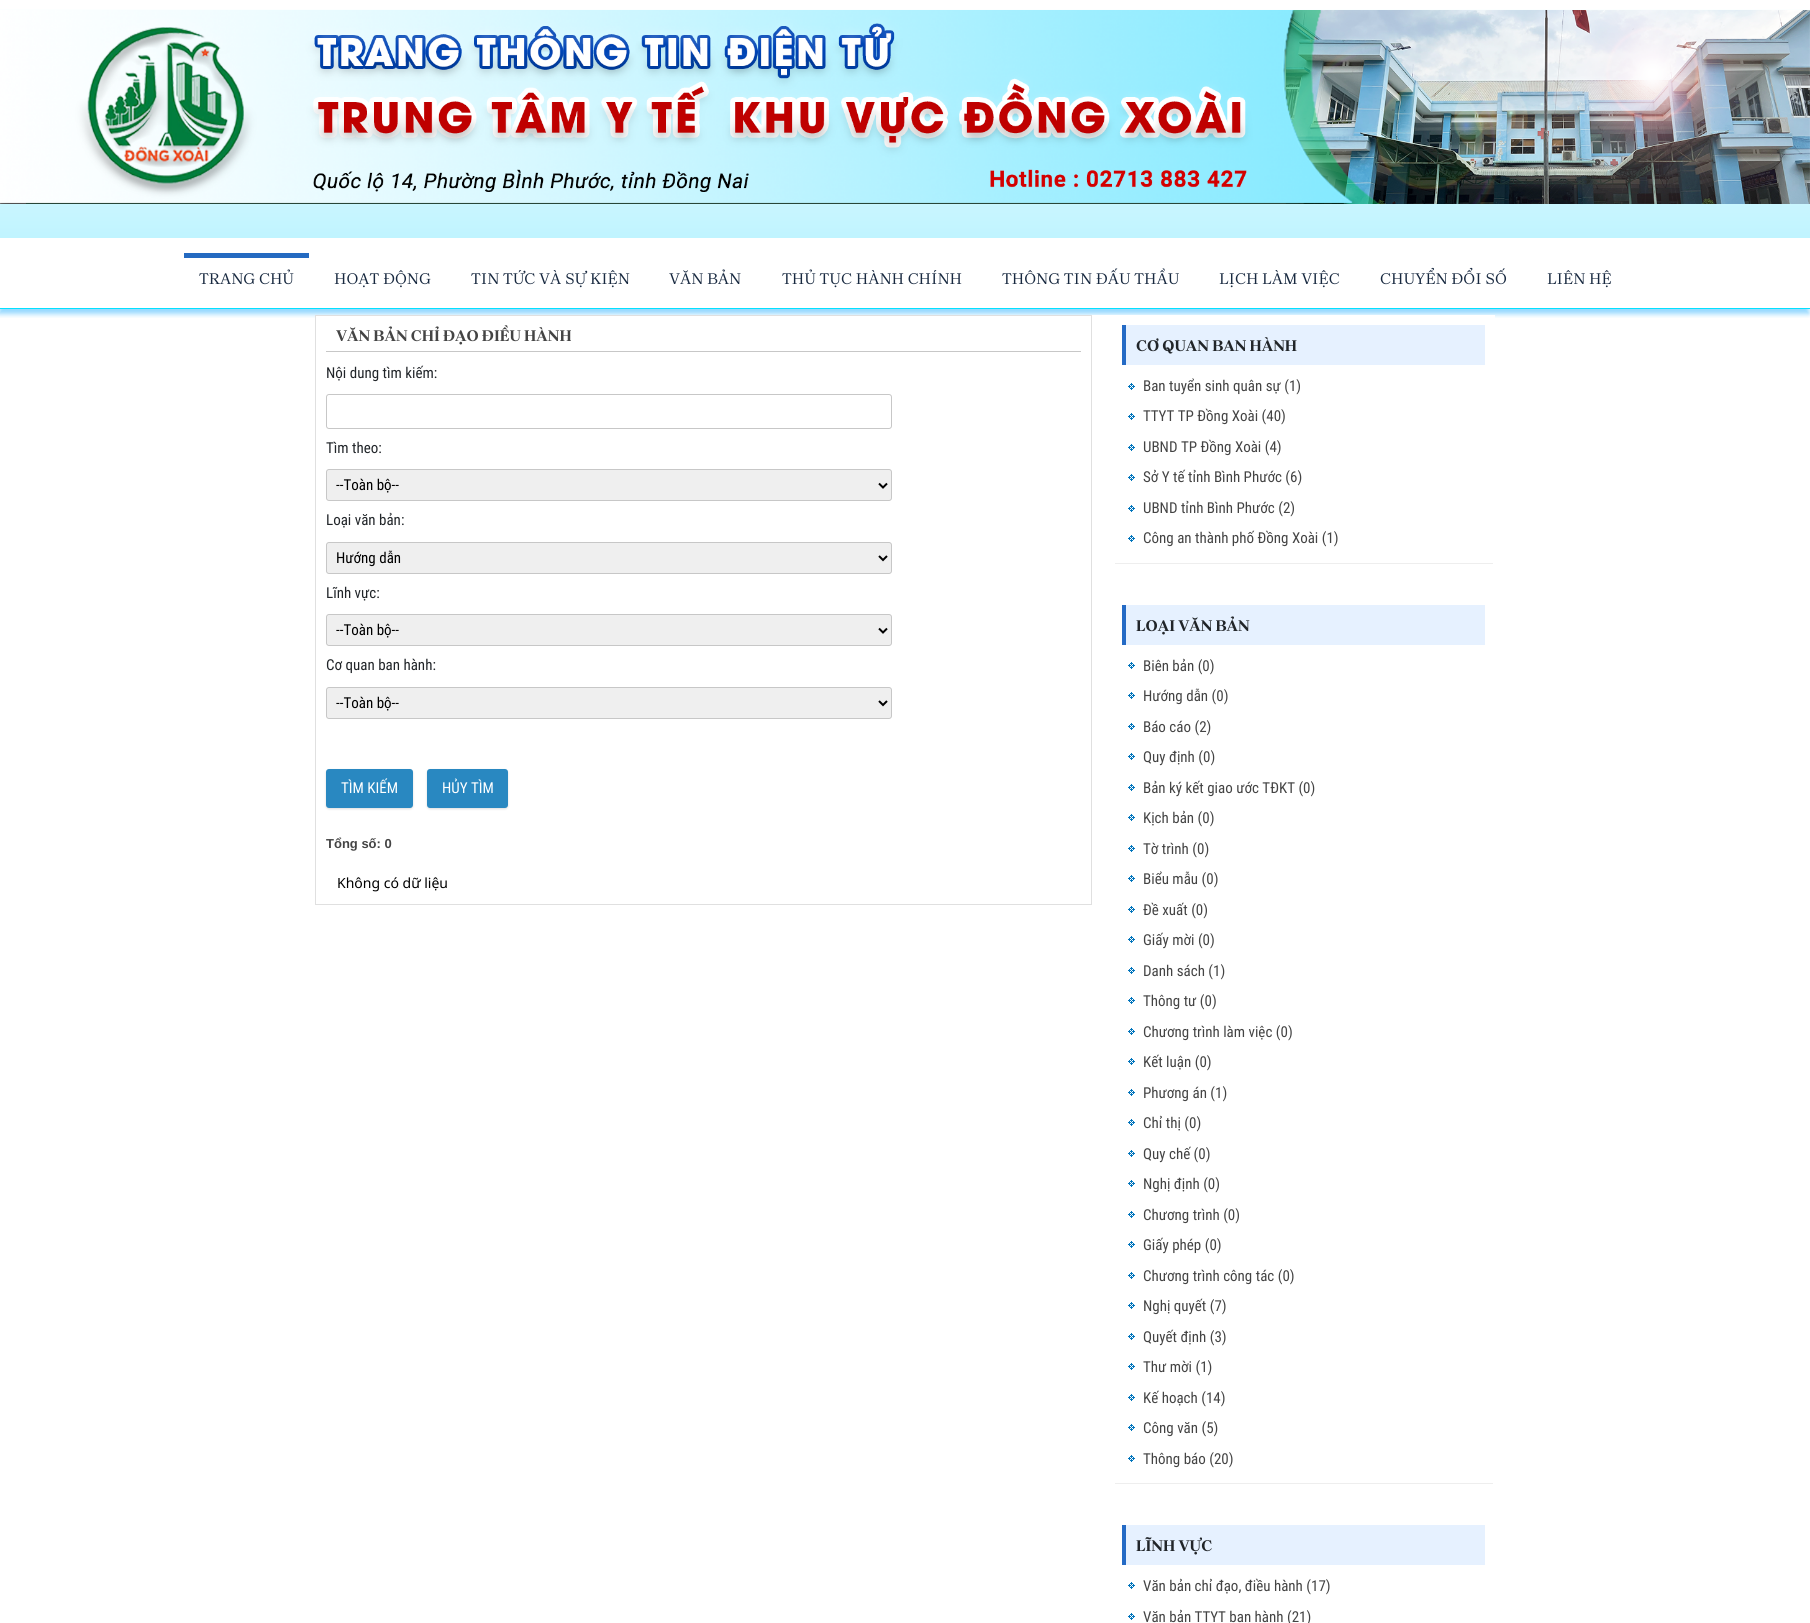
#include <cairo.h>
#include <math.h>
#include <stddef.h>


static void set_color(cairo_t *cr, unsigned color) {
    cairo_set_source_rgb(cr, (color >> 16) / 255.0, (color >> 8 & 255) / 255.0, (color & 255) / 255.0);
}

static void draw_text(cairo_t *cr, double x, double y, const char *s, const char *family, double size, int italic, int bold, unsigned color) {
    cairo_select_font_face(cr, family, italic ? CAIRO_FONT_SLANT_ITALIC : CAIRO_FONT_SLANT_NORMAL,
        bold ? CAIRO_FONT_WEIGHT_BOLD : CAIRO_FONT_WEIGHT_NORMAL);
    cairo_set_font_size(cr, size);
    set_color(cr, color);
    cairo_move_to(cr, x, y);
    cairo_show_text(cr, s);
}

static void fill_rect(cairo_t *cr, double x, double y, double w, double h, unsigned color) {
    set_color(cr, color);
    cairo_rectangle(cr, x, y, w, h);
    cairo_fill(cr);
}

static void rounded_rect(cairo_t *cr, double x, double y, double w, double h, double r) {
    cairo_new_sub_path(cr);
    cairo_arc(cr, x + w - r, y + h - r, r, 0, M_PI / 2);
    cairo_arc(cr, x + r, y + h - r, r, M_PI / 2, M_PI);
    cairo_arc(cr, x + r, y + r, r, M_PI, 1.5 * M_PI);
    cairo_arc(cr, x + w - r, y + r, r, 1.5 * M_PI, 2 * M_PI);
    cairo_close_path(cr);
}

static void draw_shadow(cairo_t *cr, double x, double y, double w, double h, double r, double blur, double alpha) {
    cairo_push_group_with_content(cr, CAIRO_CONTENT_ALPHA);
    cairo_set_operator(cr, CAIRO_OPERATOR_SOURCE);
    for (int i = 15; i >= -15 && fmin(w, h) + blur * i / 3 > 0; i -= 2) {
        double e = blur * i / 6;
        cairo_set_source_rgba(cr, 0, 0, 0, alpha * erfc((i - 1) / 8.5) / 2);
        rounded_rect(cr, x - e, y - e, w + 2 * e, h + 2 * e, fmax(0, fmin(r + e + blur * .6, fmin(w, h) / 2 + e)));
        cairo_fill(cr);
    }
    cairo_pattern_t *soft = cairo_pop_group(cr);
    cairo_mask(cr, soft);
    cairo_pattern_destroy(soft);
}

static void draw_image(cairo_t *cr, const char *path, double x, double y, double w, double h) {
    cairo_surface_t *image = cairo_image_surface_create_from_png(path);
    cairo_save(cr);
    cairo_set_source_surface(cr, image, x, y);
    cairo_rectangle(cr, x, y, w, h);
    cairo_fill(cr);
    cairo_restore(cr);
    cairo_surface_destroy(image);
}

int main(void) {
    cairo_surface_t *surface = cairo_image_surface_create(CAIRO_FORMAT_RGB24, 1810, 1623);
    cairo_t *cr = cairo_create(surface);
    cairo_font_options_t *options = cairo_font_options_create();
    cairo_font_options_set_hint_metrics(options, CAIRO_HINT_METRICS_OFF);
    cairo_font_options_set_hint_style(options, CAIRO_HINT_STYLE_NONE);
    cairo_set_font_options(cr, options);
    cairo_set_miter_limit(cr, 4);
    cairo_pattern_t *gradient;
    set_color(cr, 0xFFFFFF);
    cairo_paint(cr);
    gradient = cairo_pattern_create_linear(905, 0, 905, 238);
    cairo_pattern_add_color_stop_rgba(gradient, 0, 1, 1, 1, 1);
    cairo_pattern_add_color_stop_rgba(gradient, 1, 0.753, 0.957, 1, 1);
    cairo_set_source(cr, gradient);
    cairo_pattern_destroy(gradient);
    cairo_rectangle(cr, 0, 9, 1810, 229);
    cairo_fill(cr);
    draw_image(cr, "assets/img1.png", 0, 10, 1810, 194);
    cairo_save(cr);
    cairo_rectangle(cr, 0, 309, 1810, 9);
    cairo_clip(cr);
    set_color(cr, 0x33B4FF);
    draw_shadow(cr, -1, 258, 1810, 56, 0, 2.5, 0.52);
    cairo_restore(cr);
    fill_rect(cr, 0, 308, 1810, 1, 0x03E1FF);
    fill_rect(cr, 184, 253, 125, 5, 0x246AC1);
    draw_text(cr, 199, 284, "TRANG CHỦ", "Brygada 1918", 16, 0, 0, 0x182940);
    draw_text(cr, 334, 284, "HOẠT ĐỘNG", "Brygada 1918", 16, 0, 0, 0x182940);
    draw_text(cr, 471, 284, "TIN TỨC VÀ SỰ KIỆN", "Brygada 1918", 16, 0, 0, 0x182940);
    draw_text(cr, 669, 284, "VĂN BẢN", "Brygada 1918", 16, 0, 0, 0x182940);
    draw_text(cr, 782, 284, "THỦ TỤC HÀNH CHÍNH", "Brygada 1918", 16, 0, 0, 0x182940);
    draw_text(cr, 1002, 284, "THÔNG TIN ĐẤU THẦU", "Brygada 1918", 16, 0, 0, 0x182940);
    draw_text(cr, 1219, 284, "LỊCH LÀM VIỆC", "Brygada 1918", 16, 0, 0, 0x182940);
    draw_text(cr, 1380, 284, "CHUYỂN ĐỔI SỐ", "Brygada 1918", 16, 0, 0, 0x182940);
    draw_text(cr, 1547, 284, "LIÊN HỆ", "Brygada 1918", 16, 0, 0, 0x182940);
    fill_rect(cr, 315, 315, 1180, 4, 0xFFFFFF);
    cairo_rectangle(cr, 315.5, 315.5, 776, 589);
    set_color(cr, 0xE0E0E0);
    cairo_set_line_width(cr, 1);
    cairo_stroke(cr);
    fill_rect(cr, 326, 351, 755, 1, 0xC7C7C7);
    draw_text(cr, 336, 341, "VĂN BẢN CHỈ ĐẠO ĐIỀU HÀNH", "Brygada 1918", 16, 0, 1, 0x444444);
    draw_text(cr, 326, 378, "Nội dung tìm kiếm:", "Roboto Condensed", 15, 0, 0, 0x212529);
    rounded_rect(cr, 326.5, 394.5, 565, 34, 2.5);
    set_color(cr, 0xC7C7C7);
    cairo_stroke(cr);
    draw_text(cr, 326, 453, "Tìm theo:", "Roboto Condensed", 15, 0, 0, 0x212529);
    set_color(cr, 0xEFEFEF);
    rounded_rect(cr, 326.5, 469.5, 565, 31, 2.5);
    cairo_fill_preserve(cr);
    set_color(cr, 0xC7C7C7);
    cairo_stroke(cr);
    cairo_new_path(cr);
    cairo_move_to(cr, 879, 483.5);
    cairo_line_to(cr, 883, 487.5);
    cairo_line_to(cr, 887, 483.5);
    set_color(cr, 0x000000);
    cairo_set_line_width(cr, 2);
    cairo_stroke(cr);
    draw_text(cr, 336, 490, "--Toàn bộ--", "Roboto Condensed", 15, 0, 0, 0x000000);
    draw_text(cr, 326, 525, "Loại văn bản:", "Roboto Condensed", 15, 0, 0, 0x212529);
    set_color(cr, 0xEFEFEF);
    rounded_rect(cr, 326.5, 542.5, 565, 31, 2.5);
    cairo_fill_preserve(cr);
    set_color(cr, 0xC7C7C7);
    cairo_set_line_width(cr, 1);
    cairo_stroke(cr);
    cairo_new_path(cr);
    cairo_move_to(cr, 879, 556);
    cairo_line_to(cr, 883, 560);
    cairo_line_to(cr, 887, 556);
    set_color(cr, 0x000000);
    cairo_set_line_width(cr, 2);
    cairo_stroke(cr);
    draw_text(cr, 336, 563, "Hướng dẫn", "Roboto Condensed", 15, 0, 0, 0x000000);
    draw_text(cr, 326, 598, "Lĩnh vực:", "Roboto Condensed", 15, 0, 0, 0x212529);
    set_color(cr, 0xEFEFEF);
    rounded_rect(cr, 326.5, 614.5, 565, 31, 2.5);
    cairo_fill_preserve(cr);
    set_color(cr, 0xC7C7C7);
    cairo_set_line_width(cr, 1);
    cairo_stroke(cr);
    cairo_new_path(cr);
    cairo_move_to(cr, 879, 628.5);
    cairo_line_to(cr, 883, 632.5);
    cairo_line_to(cr, 887, 628.5);
    set_color(cr, 0x000000);
    cairo_set_line_width(cr, 2);
    cairo_stroke(cr);
    draw_text(cr, 336, 635, "--Toàn bộ--", "Roboto Condensed", 15, 0, 0, 0x000000);
    draw_text(cr, 326, 670, "Cơ quan ban hành:", "Roboto Condensed", 15, 0, 0, 0x212529);
    set_color(cr, 0xEFEFEF);
    rounded_rect(cr, 326.5, 687.5, 565, 31, 2.5);
    cairo_fill_preserve(cr);
    set_color(cr, 0xC7C7C7);
    cairo_set_line_width(cr, 1);
    cairo_stroke(cr);
    cairo_new_path(cr);
    cairo_move_to(cr, 879, 701);
    cairo_line_to(cr, 883, 705);
    cairo_line_to(cr, 887, 701);
    set_color(cr, 0x000000);
    cairo_set_line_width(cr, 2);
    cairo_stroke(cr);
    draw_text(cr, 336, 708, "--Toàn bộ--", "Roboto Condensed", 15, 0, 0, 0x000000);
    set_color(cr, 0xDDDDDD);
    draw_shadow(cr, 326, 770, 87, 39, 3, 1, 1);
    set_color(cr, 0x2988C1);
    rounded_rect(cr, 326, 769, 87, 39, 3);
    cairo_fill(cr);
    draw_text(cr, 341, 793, "TÌM KIẾM", "Roboto Condensed", 15, 0, 0, 0xFFFFFF);
    set_color(cr, 0xDDDDDD);
    draw_shadow(cr, 427, 770, 81, 39, 3, 1, 1);
    set_color(cr, 0x2988C1);
    rounded_rect(cr, 427, 769, 81, 39, 3);
    cairo_fill(cr);
    draw_text(cr, 442, 793, "HỦY TÌM", "Roboto Condensed", 15, 0, 0, 0xFFFFFF);
    draw_text(cr, 326, 848, "Tổng số: 0", "Liberation Sans", 13, 0, 1, 0x444444);
    draw_text(cr, 337, 888, "Không có dữ liệu", "Noto Sans", 14, 0, 0, 0x000000);
    fill_rect(cr, 1115, 563, 378, 1, 0xEEEEEE);
    fill_rect(cr, 1126, 325, 359, 40, 0xE6F1FF);
    fill_rect(cr, 1122, 325, 4, 40, 0x246AC5);
    draw_text(cr, 1136, 351, "CƠ QUAN BAN HÀNH", "Brygada 1918", 16, 0, 1, 0x212529);
    draw_image(cr, "assets/img2.png", 1128, 383, 7, 7);
    draw_text(cr, 1143, 391, "Ban tuyển sinh quân sự (1)", "Roboto Condensed", 15, 0, 0, 0x444444);
    draw_image(cr, "assets/img2.png", 1128, 413, 7, 7);
    draw_text(cr, 1143, 421, "TTYT TP Đồng Xoài (40)", "Roboto Condensed", 15, 0, 0, 0x444444);
    draw_image(cr, "assets/img2.png", 1128, 444, 7, 7);
    draw_text(cr, 1143, 452, "UBND TP Đồng Xoài (4)", "Roboto Condensed", 15, 0, 0, 0x444444);
    draw_image(cr, "assets/img2.png", 1128, 474, 7, 7);
    draw_text(cr, 1143, 482, "Sở Y tế tỉnh Bình Phước (6)", "Roboto Condensed", 15, 0, 0, 0x444444);
    draw_image(cr, "assets/img2.png", 1128, 505, 7, 7);
    draw_text(cr, 1143, 513, "UBND tỉnh Bình Phước (2)", "Roboto Condensed", 15, 0, 0, 0x444444);
    draw_image(cr, "assets/img2.png", 1128, 535, 7, 7);
    draw_text(cr, 1143, 543, "Công an thành phố Đồng Xoài (1)", "Roboto Condensed", 15, 0, 0, 0x444444);
    fill_rect(cr, 1115, 1483, 378, 1, 0xEEEEEE);
    fill_rect(cr, 1126, 605, 359, 40, 0xE6F1FF);
    fill_rect(cr, 1122, 605, 4, 40, 0x246AC5);
    draw_text(cr, 1136, 631, "LOẠI VĂN BẢN", "Brygada 1918", 16, 0, 1, 0x212529);
    draw_image(cr, "assets/img2.png", 1128, 662, 7, 7);
    draw_text(cr, 1143, 671, "Biên bản (0)", "Roboto Condensed", 15, 0, 0, 0x444444);
    draw_image(cr, "assets/img2.png", 1128, 692, 7, 7);
    draw_text(cr, 1143, 701, "Hướng dẫn (0)", "Roboto Condensed", 15, 0, 0, 0x444444);
    draw_image(cr, "assets/img2.png", 1128, 723, 7, 7);
    draw_text(cr, 1143, 732, "Báo cáo (2)", "Roboto Condensed", 15, 0, 0, 0x444444);
    draw_image(cr, "assets/img2.png", 1128, 753, 7, 7);
    draw_text(cr, 1143, 762, "Quy định (0)", "Roboto Condensed", 15, 0, 0, 0x444444);
    draw_image(cr, "assets/img2.png", 1128, 784, 7, 7);
    draw_text(cr, 1143, 793, "Bản ký kết giao ước TĐKT (0)", "Roboto Condensed", 15, 0, 0, 0x444444);
    draw_image(cr, "assets/img2.png", 1128, 814, 7, 7);
    draw_text(cr, 1143, 823, "Kịch bản (0)", "Roboto Condensed", 15, 0, 0, 0x444444);
    draw_image(cr, "assets/img2.png", 1128, 845, 7, 7);
    draw_text(cr, 1143, 854, "Tờ trình (0)", "Roboto Condensed", 15, 0, 0, 0x444444);
    draw_image(cr, "assets/img2.png", 1128, 875, 7, 7);
    draw_text(cr, 1143, 884, "Biểu mẫu (0)", "Roboto Condensed", 15, 0, 0, 0x444444);
    draw_image(cr, "assets/img2.png", 1128, 906, 7, 7);
    draw_text(cr, 1143, 915, "Đề xuất (0)", "Roboto Condensed", 15, 0, 0, 0x444444);
    draw_image(cr, "assets/img2.png", 1128, 936, 7, 7);
    draw_text(cr, 1143, 945, "Giấy mời (0)", "Roboto Condensed", 15, 0, 0, 0x444444);
    draw_image(cr, "assets/img2.png", 1128, 967, 7, 7);
    draw_text(cr, 1143, 976, "Danh sách (1)", "Roboto Condensed", 15, 0, 0, 0x444444);
    draw_image(cr, "assets/img2.png", 1128, 997, 7, 7);
    draw_text(cr, 1143, 1006, "Thông tư (0)", "Roboto Condensed", 15, 0, 0, 0x444444);
    draw_image(cr, "assets/img2.png", 1128, 1028, 7, 7);
    draw_text(cr, 1143, 1037, "Chương trình làm việc (0)", "Roboto Condensed", 15, 0, 0, 0x444444);
    draw_image(cr, "assets/img2.png", 1128, 1058, 7, 7);
    draw_text(cr, 1143, 1067, "Kết luận (0)", "Roboto Condensed", 15, 0, 0, 0x444444);
    draw_image(cr, "assets/img2.png", 1128, 1089, 7, 7);
    draw_text(cr, 1143, 1098, "Phương án (1)", "Roboto Condensed", 15, 0, 0, 0x444444);
    draw_image(cr, "assets/img2.png", 1128, 1119, 7, 7);
    draw_text(cr, 1143, 1128, "Chỉ thị (0)", "Roboto Condensed", 15, 0, 0, 0x444444);
    draw_image(cr, "assets/img2.png", 1128, 1150, 7, 7);
    draw_text(cr, 1143, 1159, "Quy chế (0)", "Roboto Condensed", 15, 0, 0, 0x444444);
    draw_image(cr, "assets/img2.png", 1128, 1180, 7, 7);
    draw_text(cr, 1143, 1189, "Nghị định (0)", "Roboto Condensed", 15, 0, 0, 0x444444);
    draw_image(cr, "assets/img2.png", 1128, 1211, 7, 7);
    draw_text(cr, 1143, 1220, "Chương trình (0)", "Roboto Condensed", 15, 0, 0, 0x444444);
    draw_image(cr, "assets/img2.png", 1128, 1241, 7, 7);
    draw_text(cr, 1143, 1250, "Giấy phép (0)", "Roboto Condensed", 15, 0, 0, 0x444444);
    draw_image(cr, "assets/img2.png", 1128, 1272, 7, 7);
    draw_text(cr, 1143, 1281, "Chương trình công tác (0)", "Roboto Condensed", 15, 0, 0, 0x444444);
    draw_image(cr, "assets/img2.png", 1128, 1302, 7, 7);
    draw_text(cr, 1143, 1311, "Nghị quyết (7)", "Roboto Condensed", 15, 0, 0, 0x444444);
    draw_image(cr, "assets/img2.png", 1128, 1333, 7, 7);
    draw_text(cr, 1143, 1342, "Quyết định (3)", "Roboto Condensed", 15, 0, 0, 0x444444);
    draw_image(cr, "assets/img2.png", 1128, 1363, 7, 7);
    draw_text(cr, 1143, 1372, "Thư mời (1)", "Roboto Condensed", 15, 0, 0, 0x444444);
    draw_image(cr, "assets/img2.png", 1128, 1394, 7, 7);
    draw_text(cr, 1143, 1403, "Kế hoạch (14)", "Roboto Condensed", 15, 0, 0, 0x444444);
    draw_image(cr, "assets/img2.png", 1128, 1424, 7, 7);
    draw_text(cr, 1143, 1433, "Công văn (5)", "Roboto Condensed", 15, 0, 0, 0x444444);
    draw_image(cr, "assets/img2.png", 1128, 1455, 7, 7);
    draw_text(cr, 1143, 1464, "Thông báo (20)", "Roboto Condensed", 15, 0, 0, 0x444444);
    fill_rect(cr, 1126, 1525, 359, 40, 0xE6F1FF);
    fill_rect(cr, 1122, 1525, 4, 40, 0x246AC5);
    draw_text(cr, 1136, 1551, "LĨNH VỰC", "Brygada 1918", 16, 0, 1, 0x212529);
    draw_image(cr, "assets/img2.png", 1128, 1582, 7, 7);
    draw_text(cr, 1143, 1591, "Văn bản chỉ đạo, điều hành (17)", "Roboto Condensed", 15, 0, 0, 0x444444);
    draw_image(cr, "assets/img2.png", 1128, 1613, 7, 7);
    draw_text(cr, 1143, 1622, "Văn bản TTYT ban hành (21)", "Roboto Condensed", 15, 0, 0, 0x444444);
    cairo_surface_write_to_png(surface, "output.png");
    cairo_font_options_destroy(options);
    cairo_destroy(cr);
    cairo_surface_destroy(surface);
    return 0;
}
